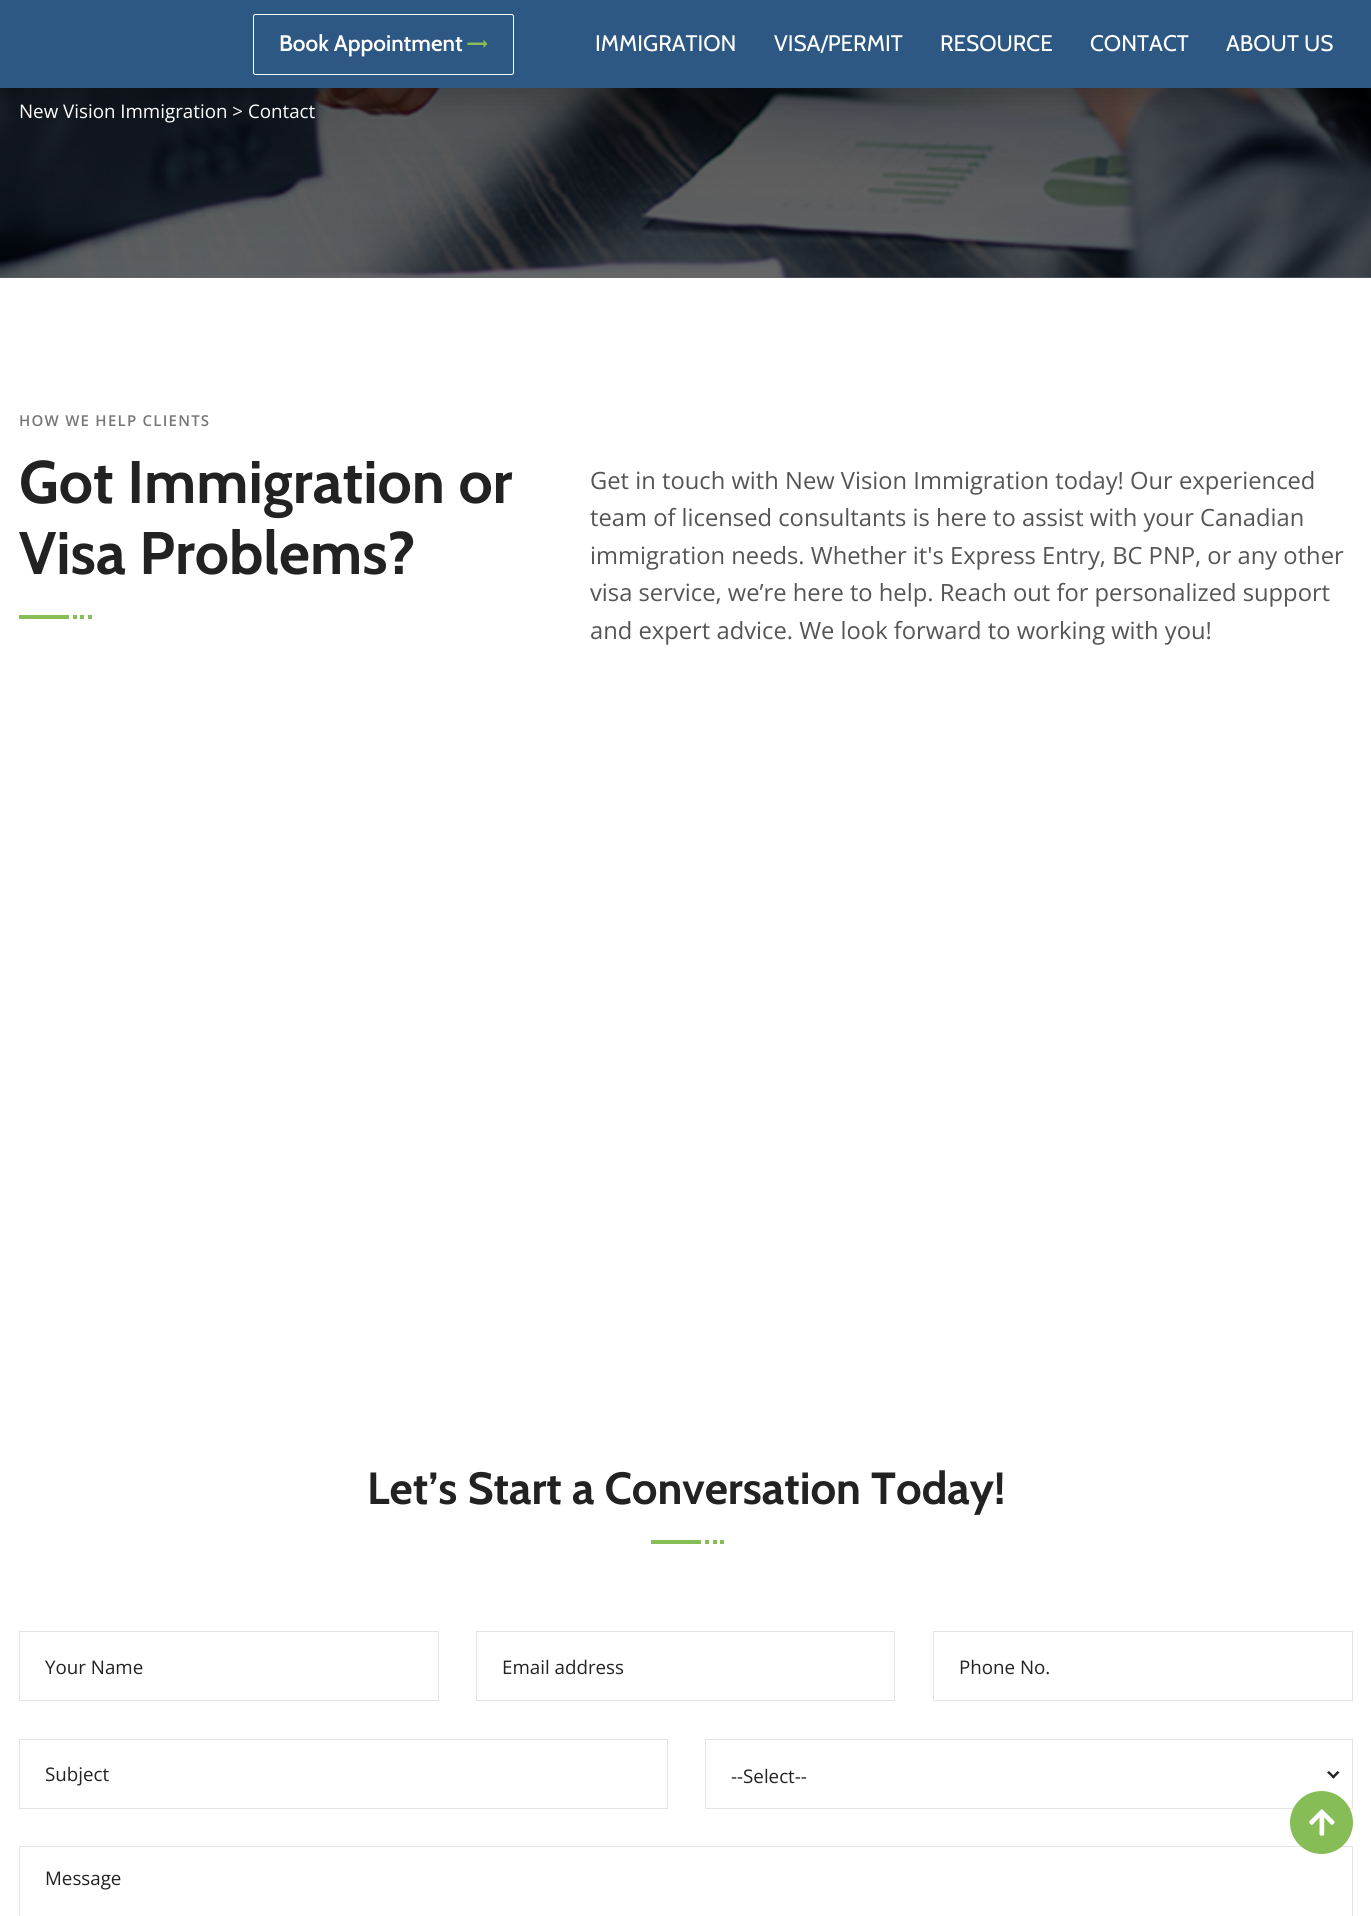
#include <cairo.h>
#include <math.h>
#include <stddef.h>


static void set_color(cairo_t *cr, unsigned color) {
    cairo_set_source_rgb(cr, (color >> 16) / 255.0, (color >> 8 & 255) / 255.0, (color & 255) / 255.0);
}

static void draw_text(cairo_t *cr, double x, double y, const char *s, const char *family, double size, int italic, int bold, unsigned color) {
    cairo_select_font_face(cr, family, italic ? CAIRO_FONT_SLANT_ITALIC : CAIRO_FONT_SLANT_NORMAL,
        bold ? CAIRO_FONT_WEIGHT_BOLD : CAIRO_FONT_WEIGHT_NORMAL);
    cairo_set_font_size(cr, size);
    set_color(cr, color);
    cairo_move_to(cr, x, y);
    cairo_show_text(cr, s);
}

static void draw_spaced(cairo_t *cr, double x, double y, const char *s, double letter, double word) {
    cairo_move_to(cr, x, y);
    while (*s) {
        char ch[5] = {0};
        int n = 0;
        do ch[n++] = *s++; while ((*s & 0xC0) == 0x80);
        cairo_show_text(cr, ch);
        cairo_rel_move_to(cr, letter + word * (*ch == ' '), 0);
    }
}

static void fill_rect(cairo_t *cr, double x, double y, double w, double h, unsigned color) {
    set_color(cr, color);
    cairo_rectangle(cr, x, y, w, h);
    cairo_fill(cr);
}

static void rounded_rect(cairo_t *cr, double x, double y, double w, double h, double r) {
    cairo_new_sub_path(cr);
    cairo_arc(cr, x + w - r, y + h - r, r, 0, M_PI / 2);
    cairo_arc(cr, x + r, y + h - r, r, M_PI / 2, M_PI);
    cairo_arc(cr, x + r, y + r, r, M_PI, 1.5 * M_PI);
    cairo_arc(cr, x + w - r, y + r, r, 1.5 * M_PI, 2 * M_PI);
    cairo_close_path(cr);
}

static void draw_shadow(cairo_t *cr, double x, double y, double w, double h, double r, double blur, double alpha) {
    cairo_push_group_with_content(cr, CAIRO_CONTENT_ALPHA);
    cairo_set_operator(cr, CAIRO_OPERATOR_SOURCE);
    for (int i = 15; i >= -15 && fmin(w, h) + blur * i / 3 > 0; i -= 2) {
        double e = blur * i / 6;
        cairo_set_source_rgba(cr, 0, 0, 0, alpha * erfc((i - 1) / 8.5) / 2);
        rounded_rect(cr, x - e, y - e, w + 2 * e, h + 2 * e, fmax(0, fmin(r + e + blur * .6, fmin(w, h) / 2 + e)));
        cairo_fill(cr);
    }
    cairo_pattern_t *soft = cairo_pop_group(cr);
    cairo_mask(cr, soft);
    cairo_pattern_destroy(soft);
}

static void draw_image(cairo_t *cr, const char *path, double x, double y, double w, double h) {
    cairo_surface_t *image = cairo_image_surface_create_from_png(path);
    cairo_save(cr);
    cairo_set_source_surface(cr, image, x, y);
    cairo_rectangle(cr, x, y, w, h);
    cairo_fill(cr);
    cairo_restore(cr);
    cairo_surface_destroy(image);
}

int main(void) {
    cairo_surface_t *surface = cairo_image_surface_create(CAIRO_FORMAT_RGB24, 1371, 1916);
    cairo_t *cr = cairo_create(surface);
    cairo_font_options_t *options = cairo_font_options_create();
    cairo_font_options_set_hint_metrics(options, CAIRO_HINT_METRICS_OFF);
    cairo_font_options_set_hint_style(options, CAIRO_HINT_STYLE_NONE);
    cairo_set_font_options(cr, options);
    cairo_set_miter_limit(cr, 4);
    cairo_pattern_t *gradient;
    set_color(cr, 0xFFFFFF);
    cairo_paint(cr);
    draw_image(cr, "assets/img1.png", 0, 88, 1371, 190);
    gradient = cairo_pattern_create_linear(686, -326, 686, 278);
    cairo_pattern_add_color_stop_rgba(gradient, 0, 0, 0, 0, 0.8);
    cairo_pattern_add_color_stop_rgba(gradient, 1, 0, 0, 0, 0.6);
    cairo_set_source(cr, gradient);
    cairo_pattern_destroy(gradient);
    cairo_rectangle(cr, 0, 88, 1371, 190);
    cairo_fill(cr);
    set_color(cr, 0x000000);
    draw_shadow(cr, 0, 13, 1371, 87, 0, 12.5, 0.2);
    fill_rect(cr, 0, 0, 1371, 88, 0x2D5883);
    rounded_rect(cr, 253.5, 14.5, 260, 60, 2);
    set_color(cr, 0xFFFFFF);
    cairo_set_line_width(cr, 1);
    cairo_stroke(cr);
    draw_text(cr, 279, 51, "Book Appointment", "Cabin SemiBold", 22.5, 0, 0, 0xFFFFFF);
    set_color(cr, 0x87BD56);
    cairo_new_path(cr);
    cairo_move_to(cr, 487.5, 44);
    cairo_line_to(cr, 483.5, 48);
    cairo_line_to(cr, 483.5, 45);
    cairo_line_to(cr, 467.5, 45);
    cairo_line_to(cr, 467.5, 42.5);
    cairo_line_to(cr, 483.5, 42.5);
    cairo_line_to(cr, 483.5, 39.5);
    cairo_close_path(cr);
    cairo_fill(cr);
    draw_text(cr, 595, 51, "IMMIGRATION", "Cabin", 22.5, 0, 0, 0xFFFFFF);
    draw_text(cr, 774, 51, "VISA/PERMIT", "Cabin", 22.5, 0, 0, 0xFFFFFF);
    draw_text(cr, 940, 51, "RESOURCE", "Cabin", 22.5, 0, 0, 0xFFFFFF);
    draw_text(cr, 1090, 51, "CONTACT", "Cabin", 22.5, 0, 0, 0xFFFFFF);
    draw_text(cr, 1226, 51, "ABOUT US", "Cabin", 22.5, 0, 0, 0xFFFFFF);
    draw_text(cr, 19, 118, "New Vision Immigration > Contact", "Open Sans", 18.75, 0, 0, 0xFFFFFF);
    cairo_select_font_face(cr, "Open Sans SemiBold", CAIRO_FONT_SLANT_NORMAL, CAIRO_FONT_WEIGHT_NORMAL);
    cairo_set_font_size(cr, 15);
    set_color(cr, 0x777777);
    draw_spaced(cr, 19, 426, "HOW WE HELP CLIENTS", 1.25, 0);
    draw_text(cr, 19, 503, "Got Immigration or", "Cabin", 60, 0, 1, 0x222222);
    draw_text(cr, 19, 574, "Visa Problems?", "Cabin", 60, 0, 1, 0x222222);
    fill_rect(cr, 19, 615, 50, 4, 0x87BD56);
    fill_rect(cr, 73, 615, 4, 4, 0x87BD56);
    fill_rect(cr, 80, 615, 4, 4, 0x87BD56);
    fill_rect(cr, 88, 615, 4, 4, 0x87BD56);
    draw_text(cr, 590, 489, "Get in touch with New Vision Immigration today! Our experienced", "Open Sans", 23.75, 0, 0, 0x555555);
    draw_text(cr, 590, 526, "team of licensed consultants is here to assist with your Canadian", "Open Sans", 23.75, 0, 0, 0x555555);
    draw_text(cr, 590, 564, "immigration needs. Whether it's Express Entry, BC PNP, or any other", "Open Sans", 23.75, 0, 0, 0x555555);
    draw_text(cr, 590, 601, "visa service, we’re here to help. Reach out for personalized support", "Open Sans", 23.75, 0, 0, 0x555555);
    draw_text(cr, 590, 639, "and expert advice. We look forward to working with you!", "Open Sans", 23.75, 0, 0, 0x555555);
    draw_text(cr, 367, 1504, "Let’s Start a Conversation Today!", "Cabin", 45, 0, 1, 0x222222);
    fill_rect(cr, 651, 1540, 50, 4, 0x87BD56);
    fill_rect(cr, 705, 1540, 4, 4, 0x87BD56);
    fill_rect(cr, 713, 1540, 4, 4, 0x87BD56);
    fill_rect(cr, 720, 1540, 4, 4, 0x87BD56);
    cairo_rectangle(cr, 19.5, 1631.5, 419, 69);
    set_color(cr, 0xE4E4E4);
    cairo_stroke(cr);
    draw_text(cr, 45, 1674, "Your Name", "Open Sans", 18.75, 0, 0, 0x222222);
    cairo_rectangle(cr, 476.5, 1631.5, 418, 69);
    set_color(cr, 0xE4E4E4);
    cairo_stroke(cr);
    draw_text(cr, 502, 1674, "Email address", "Open Sans", 18.75, 0, 0, 0x222222);
    cairo_rectangle(cr, 933.5, 1631.5, 419, 69);
    set_color(cr, 0xE4E4E4);
    cairo_stroke(cr);
    draw_text(cr, 959, 1674, "Phone No.", "Open Sans", 18.75, 0, 0, 0x222222);
    cairo_rectangle(cr, 19.5, 1739.5, 648, 69);
    set_color(cr, 0xE4E4E4);
    cairo_stroke(cr);
    draw_text(cr, 45, 1781, "Subject", "Open Sans", 18.75, 0, 0, 0x222222);
    cairo_rectangle(cr, 705.5, 1739.5, 647, 69);
    set_color(cr, 0xE4E4E4);
    cairo_stroke(cr);
    draw_text(cr, 731, 1783, "--Select--", "Open Sans", 18.75, 0, 0, 0x222222);
    cairo_new_path(cr);
    cairo_move_to(cr, 1337.5, 1771);
    cairo_line_to(cr, 1339.5, 1772.5);
    cairo_line_to(cr, 1333.5, 1778.5);
    cairo_line_to(cr, 1331.5, 1777);
    cairo_close_path(cr);
    cairo_fill(cr);
    cairo_new_path(cr);
    cairo_move_to(cr, 1329, 1771);
    cairo_line_to(cr, 1335, 1777);
    cairo_line_to(cr, 1333.5, 1778.5);
    cairo_line_to(cr, 1327, 1772.5);
    cairo_close_path(cr);
    cairo_fill(cr);
    cairo_rectangle(cr, 19.5, 1846.5, 1333, 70);
    set_color(cr, 0xE4E4E4);
    cairo_stroke(cr);
    draw_text(cr, 45, 1885, "Message", "Open Sans", 18.75, 0, 0, 0x222222);
    set_color(cr, 0x87BD56);
    cairo_new_path(cr);
    cairo_arc(cr, 1321.5, 1822.5, 31.5, 0, 2 * M_PI);
    cairo_fill(cr);
    draw_image(cr, "assets/img2.png", 1309, 1809, 26, 27);
    cairo_surface_write_to_png(surface, "output.png");
    cairo_font_options_destroy(options);
    cairo_destroy(cr);
    cairo_surface_destroy(surface);
    return 0;
}
